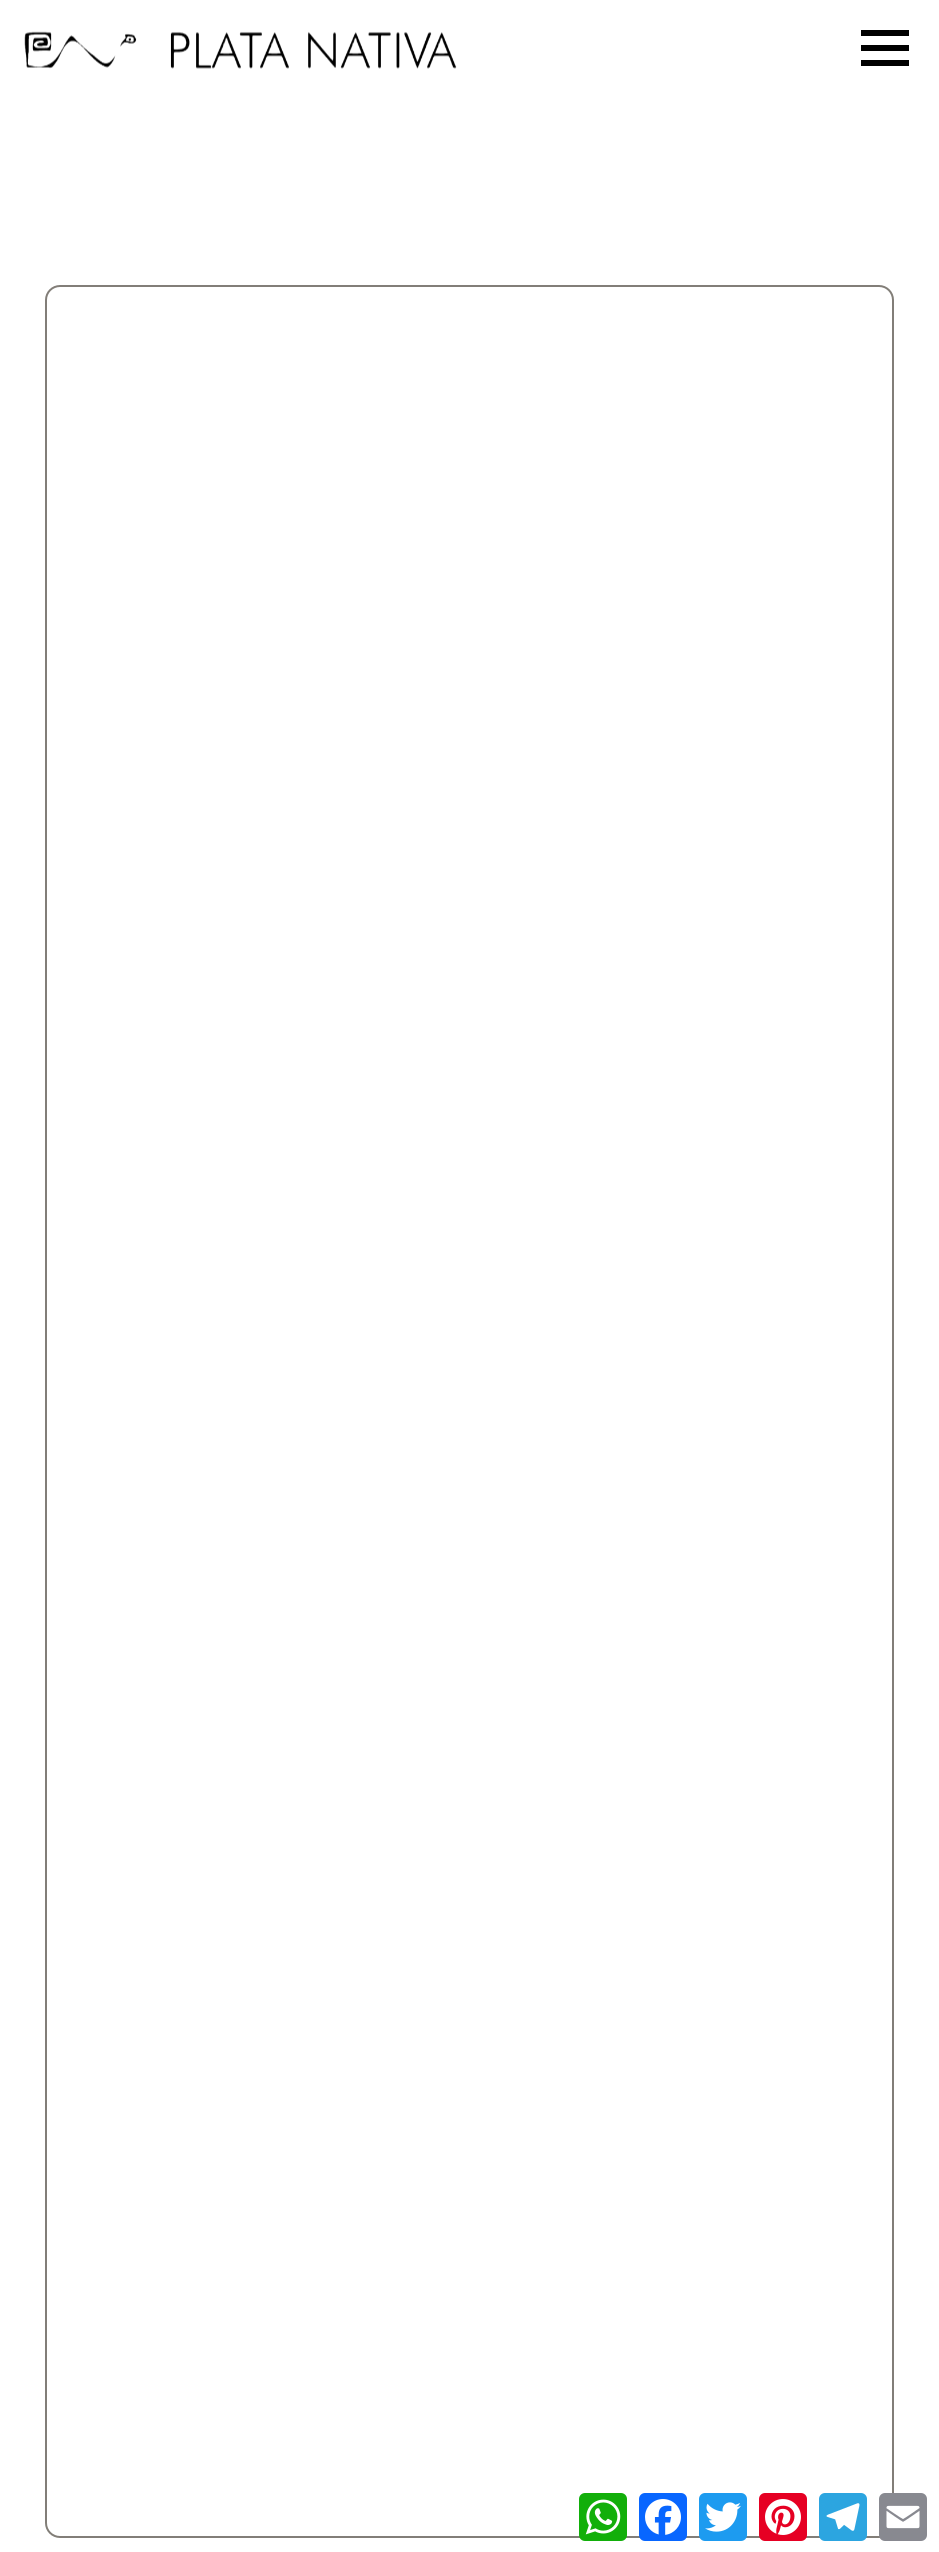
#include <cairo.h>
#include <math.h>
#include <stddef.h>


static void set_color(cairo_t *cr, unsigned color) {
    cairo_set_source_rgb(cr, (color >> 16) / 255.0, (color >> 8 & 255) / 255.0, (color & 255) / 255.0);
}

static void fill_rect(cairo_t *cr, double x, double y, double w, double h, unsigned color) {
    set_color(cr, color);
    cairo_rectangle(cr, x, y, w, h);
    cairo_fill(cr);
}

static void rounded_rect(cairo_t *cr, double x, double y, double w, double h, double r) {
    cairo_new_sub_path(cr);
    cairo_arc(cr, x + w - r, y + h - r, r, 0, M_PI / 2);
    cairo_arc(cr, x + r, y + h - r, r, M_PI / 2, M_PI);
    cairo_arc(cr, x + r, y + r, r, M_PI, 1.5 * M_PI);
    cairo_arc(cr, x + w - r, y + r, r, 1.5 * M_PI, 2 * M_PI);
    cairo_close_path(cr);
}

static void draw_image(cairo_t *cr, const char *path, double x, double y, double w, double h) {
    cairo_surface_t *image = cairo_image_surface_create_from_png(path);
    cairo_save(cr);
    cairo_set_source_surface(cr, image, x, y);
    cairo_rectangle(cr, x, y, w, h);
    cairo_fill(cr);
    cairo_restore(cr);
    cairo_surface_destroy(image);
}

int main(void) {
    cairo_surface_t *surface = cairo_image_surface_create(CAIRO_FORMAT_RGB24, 939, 2552);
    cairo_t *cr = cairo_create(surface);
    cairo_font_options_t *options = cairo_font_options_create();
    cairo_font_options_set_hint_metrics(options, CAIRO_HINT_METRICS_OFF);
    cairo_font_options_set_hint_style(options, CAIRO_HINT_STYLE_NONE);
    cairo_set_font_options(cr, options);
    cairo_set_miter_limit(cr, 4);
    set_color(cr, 0xFFFFFF);
    cairo_paint(cr);
    draw_image(cr, "assets/img1.png", 24, 31, 433, 38);
    fill_rect(cr, 861, 45, 48, 6, 0x000000);
    fill_rect(cr, 861, 30, 48, 6, 0x000000);
    fill_rect(cr, 861, 60, 48, 6, 0x000000);
    rounded_rect(cr, 46, 286, 847, 2251, 14);
    set_color(cr, 0x827E78);
    cairo_stroke(cr);
    set_color(cr, 0x12AF0A);
    rounded_rect(cr, 579, 2493, 48, 48, 6);
    cairo_fill(cr);
    draw_image(cr, "assets/img2.png", 585, 2499, 36, 36);
    set_color(cr, 0x0866FF);
    rounded_rect(cr, 639, 2493, 48, 48, 6);
    cairo_fill(cr);
    draw_image(cr, "assets/img3.png", 645, 2499, 36, 36);
    set_color(cr, 0x1D9BF0);
    rounded_rect(cr, 699, 2493, 48, 48, 6);
    cairo_fill(cr);
    draw_image(cr, "assets/img4.png", 705, 2502, 36, 30);
    set_color(cr, 0xE60023);
    rounded_rect(cr, 759, 2493, 48, 48, 6);
    cairo_fill(cr);
    draw_image(cr, "assets/img5.png", 765, 2499, 36, 36);
    set_color(cr, 0x2CA5E0);
    rounded_rect(cr, 819, 2493, 48, 48, 6);
    cairo_fill(cr);
    draw_image(cr, "assets/img6.png", 826, 2503, 34, 28);
    set_color(cr, 0x888990);
    rounded_rect(cr, 879, 2493, 48, 48, 6);
    cairo_fill(cr);
    draw_image(cr, "assets/img7.png", 886, 2505, 34, 24);
    cairo_surface_write_to_png(surface, "output.png");
    cairo_font_options_destroy(options);
    cairo_destroy(cr);
    cairo_surface_destroy(surface);
    return 0;
}
